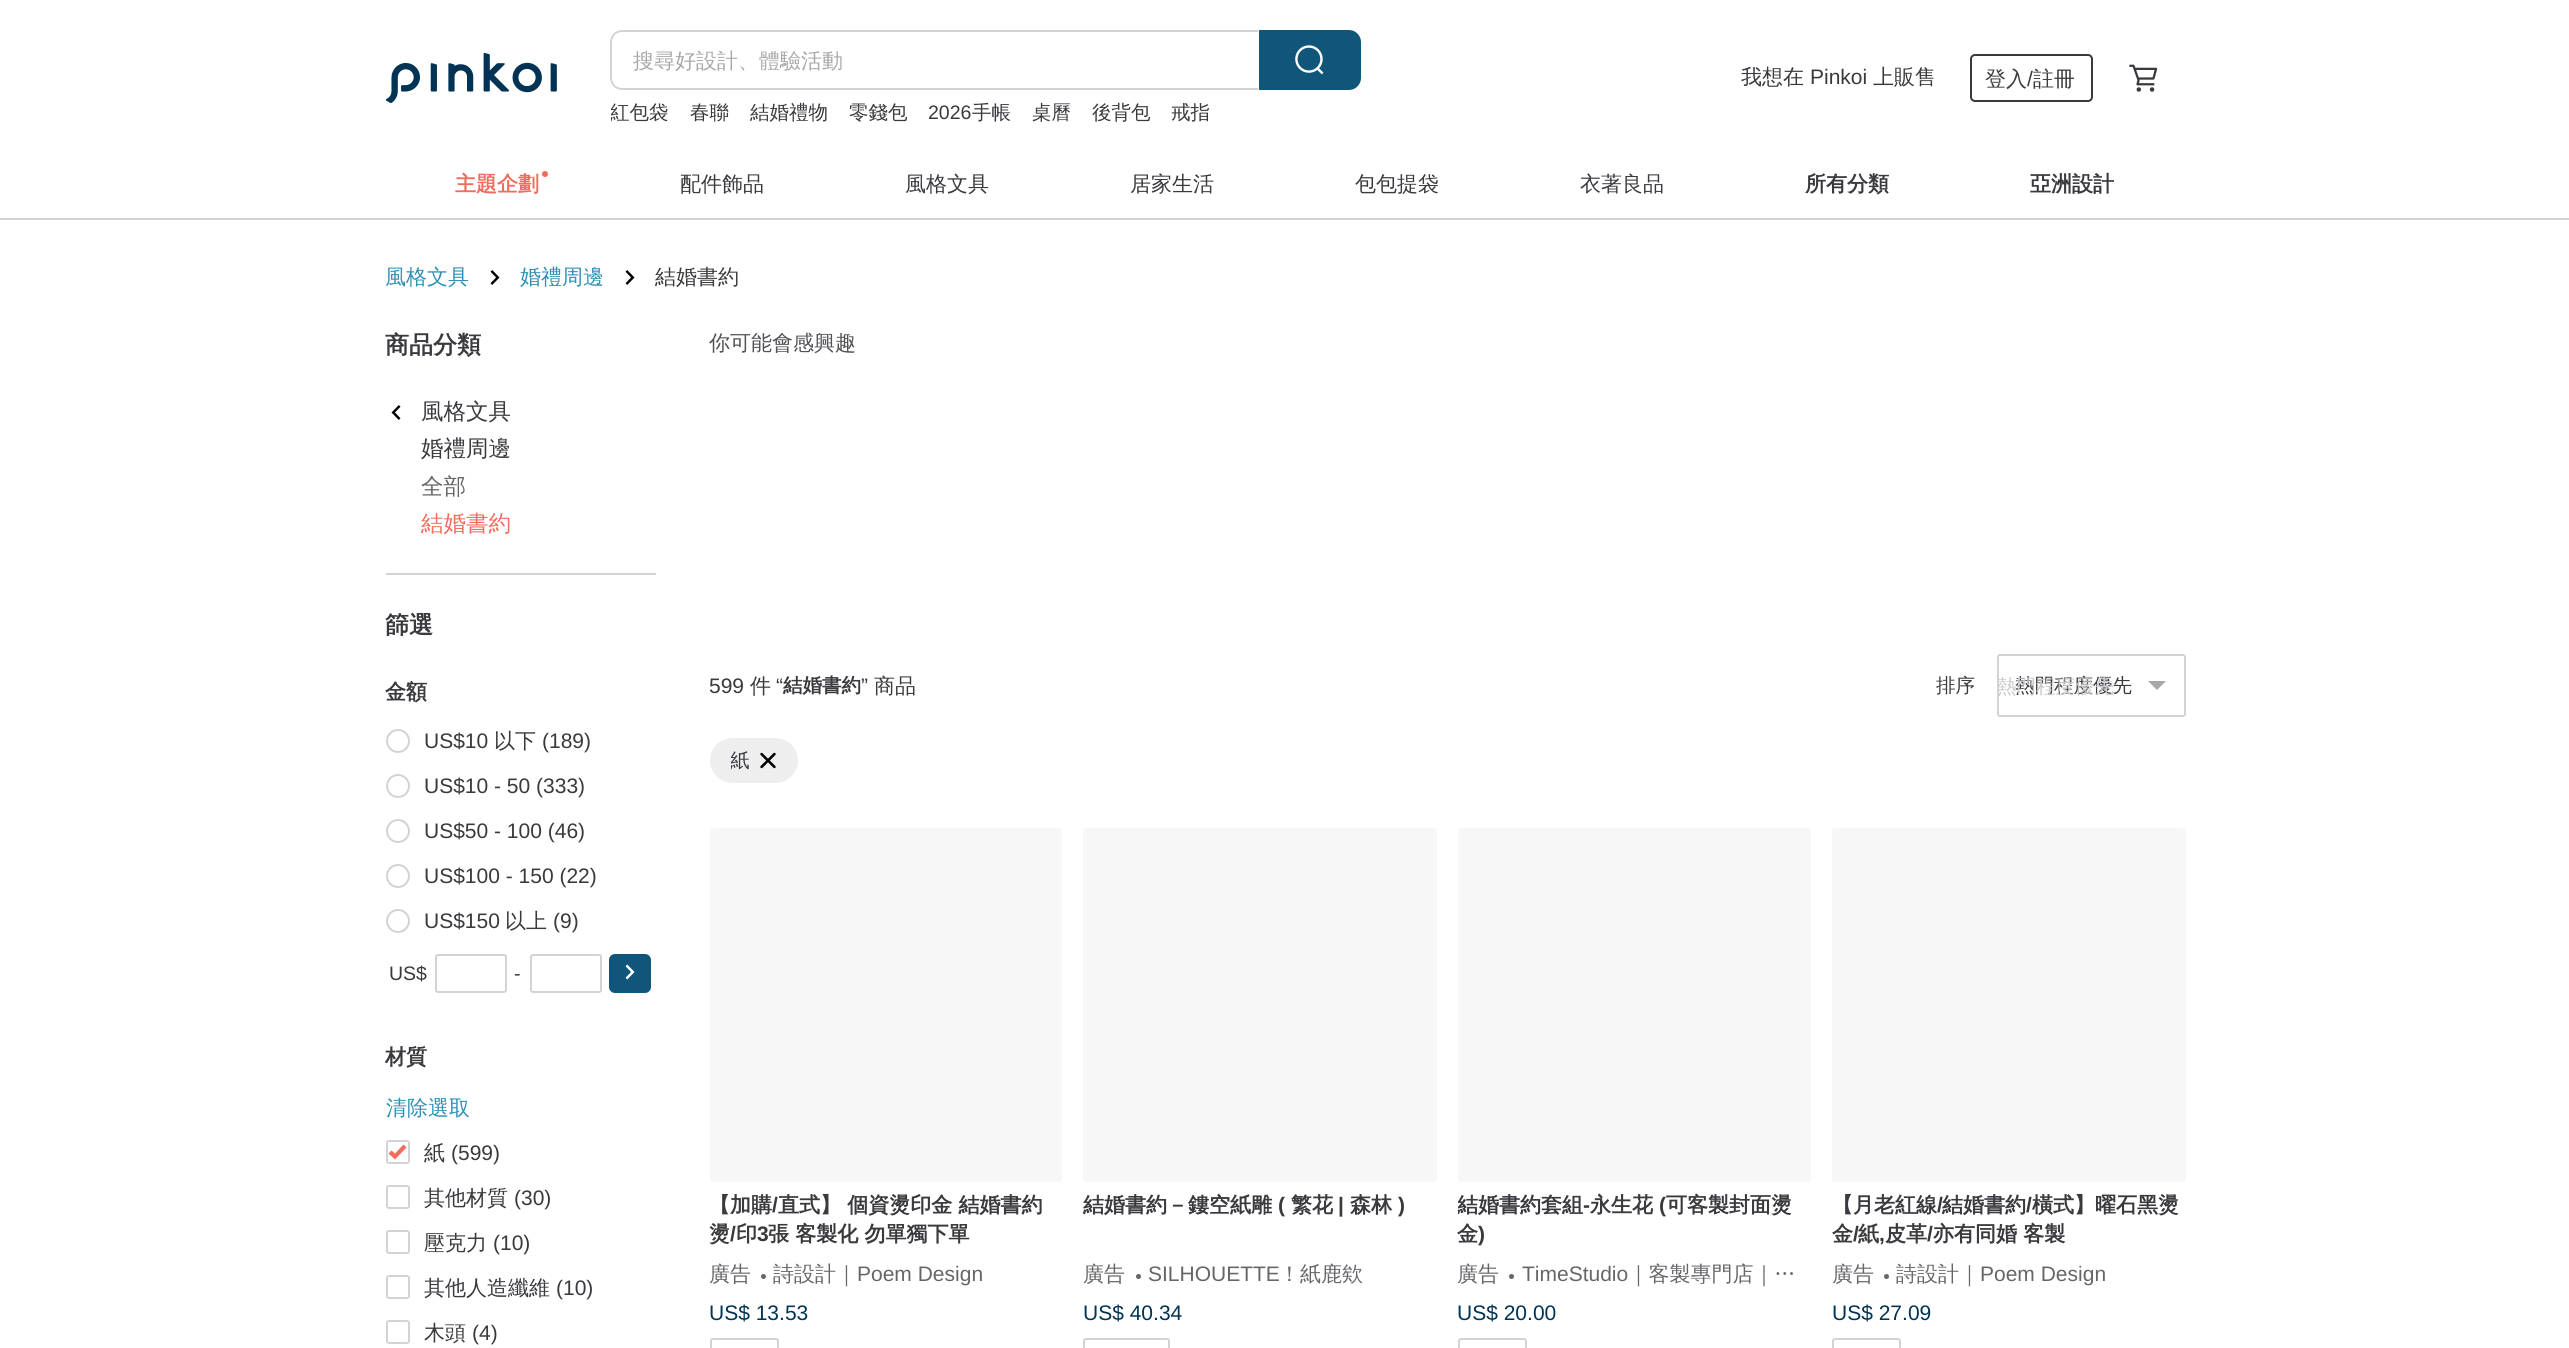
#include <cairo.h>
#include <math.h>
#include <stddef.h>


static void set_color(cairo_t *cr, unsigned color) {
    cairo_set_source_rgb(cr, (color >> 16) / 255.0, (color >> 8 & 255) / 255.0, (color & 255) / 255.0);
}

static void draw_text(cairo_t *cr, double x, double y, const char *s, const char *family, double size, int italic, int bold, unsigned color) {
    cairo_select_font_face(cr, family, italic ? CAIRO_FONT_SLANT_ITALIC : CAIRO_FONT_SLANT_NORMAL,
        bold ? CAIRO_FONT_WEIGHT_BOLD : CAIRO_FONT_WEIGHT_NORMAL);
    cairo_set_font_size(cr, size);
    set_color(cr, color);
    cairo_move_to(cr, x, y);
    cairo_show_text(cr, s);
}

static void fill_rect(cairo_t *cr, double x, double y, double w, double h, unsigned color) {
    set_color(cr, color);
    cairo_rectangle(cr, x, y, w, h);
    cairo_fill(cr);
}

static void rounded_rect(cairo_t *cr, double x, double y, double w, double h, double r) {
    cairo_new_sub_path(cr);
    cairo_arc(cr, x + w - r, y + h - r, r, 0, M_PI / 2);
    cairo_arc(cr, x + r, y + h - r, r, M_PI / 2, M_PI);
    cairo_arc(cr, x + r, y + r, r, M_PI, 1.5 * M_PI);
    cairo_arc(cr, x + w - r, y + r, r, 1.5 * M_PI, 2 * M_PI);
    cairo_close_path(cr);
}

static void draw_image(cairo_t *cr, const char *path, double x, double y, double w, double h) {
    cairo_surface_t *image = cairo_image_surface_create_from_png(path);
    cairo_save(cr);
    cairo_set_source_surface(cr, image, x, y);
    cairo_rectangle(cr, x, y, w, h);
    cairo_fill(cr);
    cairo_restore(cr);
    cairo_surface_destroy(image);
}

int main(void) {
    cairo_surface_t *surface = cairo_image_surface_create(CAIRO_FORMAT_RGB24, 2569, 1348);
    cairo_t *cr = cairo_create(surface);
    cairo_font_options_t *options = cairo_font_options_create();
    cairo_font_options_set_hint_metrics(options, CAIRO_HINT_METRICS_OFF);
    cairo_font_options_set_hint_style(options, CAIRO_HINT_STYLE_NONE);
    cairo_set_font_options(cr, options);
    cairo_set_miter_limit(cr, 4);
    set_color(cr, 0xFFFFFF);
    cairo_paint(cr);
    draw_image(cr, "assets/img1.png", 386, 52, 171, 51);
    set_color(cr, 0xD3D3D5);
    cairo_set_fill_rule(cr, CAIRO_FILL_RULE_EVEN_ODD);
    cairo_new_path(cr);
    cairo_move_to(cr, 622, 30);
    cairo_line_to(cr, 1258, 30);
    cairo_line_to(cr, 1258, 90);
    cairo_line_to(cr, 622, 90);
    cairo_curve_to(cr, 616, 90, 610, 85, 610, 78);
    cairo_line_to(cr, 610, 42);
    cairo_curve_to(cr, 610, 35, 616, 30, 622, 30);
    cairo_close_path(cr);
    cairo_move_to(cr, 622, 32);
    cairo_line_to(cr, 1258, 32);
    cairo_line_to(cr, 1258, 88);
    cairo_line_to(cr, 622, 88);
    cairo_curve_to(cr, 617, 88, 612, 84, 612, 78);
    cairo_line_to(cr, 612, 42);
    cairo_curve_to(cr, 612, 36, 617, 32, 622, 32);
    cairo_close_path(cr);
    cairo_fill(cr);
    draw_text(cr, 633, 68, "搜尋好設計、體驗活動", "WenQuanYi Zen Hei Medium", 21, 0, 0, 0xA8A8AB);
    set_color(cr, 0x10567B);
    cairo_new_path(cr);
    cairo_move_to(cr, 1259, 30);
    cairo_line_to(cr, 1349, 30);
    cairo_curve_to(cr, 1355.5, 30, 1361, 35.5, 1361, 42);
    cairo_line_to(cr, 1361, 78);
    cairo_curve_to(cr, 1361, 84.5, 1355.5, 90, 1349, 90);
    cairo_line_to(cr, 1259, 90);
    cairo_close_path(cr);
    cairo_fill(cr);
    draw_image(cr, "assets/img2.png", 1295, 45, 29, 30);
    cairo_save(cr);
    cairo_set_fill_rule(cr, CAIRO_FILL_RULE_WINDING);
    cairo_rectangle(cr, 611, 99, 750, 27);
    cairo_clip(cr);
    draw_text(cr, 610, 119, "紅包袋", "WenQuanYi Zen Hei Medium", 19.5, 0, 0, 0x39393E);
    cairo_restore(cr);
    draw_text(cr, 690, 119, "春聯", "WenQuanYi Zen Hei Medium", 19.5, 0, 0, 0x39393E);
    draw_text(cr, 750, 119, "結婚禮物", "WenQuanYi Zen Hei Medium", 19.5, 0, 0, 0x39393E);
    draw_text(cr, 849, 119, "零錢包", "WenQuanYi Zen Hei Medium", 19.5, 0, 0, 0x39393E);
    draw_text(cr, 928, 119, "2026", "Liberation Sans", 19.5, 0, 0, 0x39393E);
    draw_text(cr, 972, 119, "手帳", "WenQuanYi Zen Hei Medium", 19.5, 0, 0, 0x39393E);
    draw_text(cr, 1032, 119, "桌曆", "WenQuanYi Zen Hei Medium", 19.5, 0, 0, 0x39393E);
    draw_text(cr, 1092, 119, "後背包", "WenQuanYi Zen Hei Medium", 19.5, 0, 0, 0x39393E);
    draw_text(cr, 1171, 119, "戒指", "WenQuanYi Zen Hei Medium", 19.5, 0, 0, 0x39393E);
    draw_text(cr, 1741, 84, "我想在", "WenQuanYi Zen Hei Medium", 21, 0, 0, 0x39393E);
    draw_text(cr, 1810, 84, "Pinkoi", "Liberation Sans", 21, 0, 0, 0x39393E);
    draw_text(cr, 1873, 84, "上販售", "WenQuanYi Zen Hei Medium", 21, 0, 0, 0x39393E);
    rounded_rect(cr, 1971, 55, 121, 46, 4);
    cairo_stroke(cr);
    draw_text(cr, 1985, 86, "登入", "WenQuanYi Zen Hei Medium", 21, 0, 0, 0x39393E);
    draw_text(cr, 2027, 86, "/", "Liberation Sans", 21, 0, 0, 0x39393E);
    draw_text(cr, 2033, 86, "註冊", "WenQuanYi Zen Hei Medium", 21, 0, 0, 0x39393E);
    draw_image(cr, "assets/img3.png", 2129, 64, 29, 28);
    fill_rect(cr, 0, 218, 2569, 2, 0xD3D3D5);
    draw_text(cr, 455, 191, "主題企劃", "WenQuanYi Zen Hei", 21, 0, 1, 0xF16C5D);
    cairo_new_path(cr);
    cairo_arc(cr, 545, 174, 3, 0, 2 * M_PI);
    cairo_fill(cr);
    draw_text(cr, 680, 191, "配件飾品", "WenQuanYi Zen Hei Medium", 21, 0, 0, 0x39393E);
    draw_text(cr, 905, 191, "風格文具", "WenQuanYi Zen Hei Medium", 21, 0, 0, 0x39393E);
    draw_text(cr, 1130, 191, "居家生活", "WenQuanYi Zen Hei Medium", 21, 0, 0, 0x39393E);
    draw_text(cr, 1355, 191, "包包提袋", "WenQuanYi Zen Hei Medium", 21, 0, 0, 0x39393E);
    draw_text(cr, 1580, 191, "衣著良品", "WenQuanYi Zen Hei Medium", 21, 0, 0, 0x39393E);
    draw_text(cr, 1805, 191, "所有分類", "WenQuanYi Zen Hei", 21, 0, 1, 0x39393E);
    draw_text(cr, 2030, 191, "亞洲設計", "WenQuanYi Zen Hei", 21, 0, 1, 0x39393E);
    draw_text(cr, 385, 284, "風格文具", "WenQuanYi Zen Hei Medium", 21, 0, 0, 0x2E90B7);
    draw_image(cr, "assets/img4.png", 490, 270, 10, 15);
    draw_text(cr, 520, 284, "婚禮周邊", "WenQuanYi Zen Hei Medium", 21, 0, 0, 0x2E90B7);
    draw_image(cr, "assets/img4.png", 625, 270, 10, 15);
    draw_text(cr, 655, 284, "結婚書約", "WenQuanYi Zen Hei Medium", 21, 0, 0, 0x39393E);
    draw_text(cr, 385, 353, "商品分類", "WenQuanYi Zen Hei", 24, 0, 1, 0x39393E);
    draw_image(cr, "assets/img5.png", 391, 405, 10, 15);
    draw_text(cr, 421, 419, "風格文具", "WenQuanYi Zen Hei Medium", 22.5, 0, 0, 0x39393E);
    draw_text(cr, 421, 456, "婚禮周邊", "WenQuanYi Zen Hei Medium", 22.5, 0, 0, 0x39393E);
    draw_text(cr, 421, 494, "全部", "WenQuanYi Zen Hei Medium", 22.5, 0, 0, 0x66666A);
    draw_text(cr, 421, 531, "結婚書約", "WenQuanYi Zen Hei Medium", 22.5, 0, 0, 0xF16C5D);
    fill_rect(cr, 386, 573, 270, 2, 0xD3D3D5);
    draw_text(cr, 385, 633, "篩選", "WenQuanYi Zen Hei", 24, 0, 1, 0x39393E);
    draw_text(cr, 385, 699, "金額", "WenQuanYi Zen Hei", 21, 0, 1, 0x39393E);
    cairo_new_path(cr);
    cairo_arc(cr, 398, 741, 11, 0, 2 * M_PI);
    set_color(cr, 0xD3D3D5);
    cairo_stroke(cr);
    draw_text(cr, 424, 748, "US$10", "Liberation Sans", 21, 0, 0, 0x39393E);
    draw_text(cr, 494, 748, "以下", "WenQuanYi Zen Hei Medium", 21, 0, 0, 0x39393E);
    draw_text(cr, 542, 748, "(189)", "Liberation Sans", 21, 0, 0, 0x39393E);
    cairo_new_path(cr);
    cairo_arc(cr, 398, 786, 11, 0, 2 * M_PI);
    set_color(cr, 0xD3D3D5);
    cairo_stroke(cr);
    draw_text(cr, 424, 793, "US$10 - 50 (333)", "Liberation Sans", 21, 0, 0, 0x39393E);
    cairo_new_path(cr);
    cairo_arc(cr, 398, 831, 11, 0, 2 * M_PI);
    set_color(cr, 0xD3D3D5);
    cairo_stroke(cr);
    draw_text(cr, 424, 838, "US$50 - 100 (46)", "Liberation Sans", 21, 0, 0, 0x39393E);
    cairo_new_path(cr);
    cairo_arc(cr, 398, 876, 11, 0, 2 * M_PI);
    set_color(cr, 0xD3D3D5);
    cairo_stroke(cr);
    draw_text(cr, 424, 883, "US$100 - 150 (22)", "Liberation Sans", 21, 0, 0, 0x39393E);
    cairo_new_path(cr);
    cairo_arc(cr, 398, 921, 11, 0, 2 * M_PI);
    set_color(cr, 0xD3D3D5);
    cairo_stroke(cr);
    draw_text(cr, 424, 928, "US$150", "Liberation Sans", 21, 0, 0, 0x39393E);
    draw_text(cr, 505, 928, "以上", "WenQuanYi Zen Hei Medium", 21, 0, 0, 0x39393E);
    draw_text(cr, 553, 928, "(9)", "Liberation Sans", 21, 0, 0, 0x39393E);
    draw_text(cr, 389, 980, "US$", "Liberation Sans", 19.5, 0, 0, 0x39393E);
    rounded_rect(cr, 436, 955, 70, 37, 2);
    set_color(cr, 0xD3D3D5);
    cairo_stroke(cr);
    draw_text(cr, 514, 980, "-", "Liberation Sans", 19.5, 0, 0, 0x39393E);
    rounded_rect(cr, 531, 955, 70, 37, 2);
    set_color(cr, 0xD3D3D5);
    cairo_stroke(cr);
    set_color(cr, 0x10567B);
    rounded_rect(cr, 610, 955, 40, 37, 5);
    cairo_fill_preserve(cr);
    cairo_stroke(cr);
    draw_image(cr, "assets/img6.png", 625, 964, 10, 16);
    draw_text(cr, 385, 1064, "材質", "WenQuanYi Zen Hei", 21, 0, 1, 0x39393E);
    draw_text(cr, 386, 1115, "清除選取", "WenQuanYi Zen Hei Medium", 21, 0, 0, 0x2E90B7);
    set_color(cr, 0xF16C5D);
    cairo_set_fill_rule(cr, CAIRO_FILL_RULE_WINDING);
    cairo_new_path(cr);
    cairo_move_to(cr, 391.5, 1150.5);
    cairo_line_to(cr, 395, 1153.5);
    cairo_line_to(cr, 403.5, 1144.5);
    cairo_line_to(cr, 406.5, 1147.5);
    cairo_line_to(cr, 395, 1159.5);
    cairo_line_to(cr, 388.5, 1153.5);
    cairo_close_path(cr);
    cairo_fill(cr);
    rounded_rect(cr, 387, 1141, 22, 22, 2);
    set_color(cr, 0xD3D3D5);
    cairo_stroke(cr);
    draw_text(cr, 424, 1160, "紙", "WenQuanYi Zen Hei Medium", 21, 0, 0, 0x39393E);
    draw_text(cr, 451, 1160, "(599)", "Liberation Sans", 21, 0, 0, 0x39393E);
    rounded_rect(cr, 387, 1186, 22, 22, 2);
    set_color(cr, 0xD3D3D5);
    cairo_stroke(cr);
    draw_text(cr, 424, 1205, "其他材質", "WenQuanYi Zen Hei Medium", 21, 0, 0, 0x39393E);
    draw_text(cr, 514, 1205, "(30)", "Liberation Sans", 21, 0, 0, 0x39393E);
    rounded_rect(cr, 387, 1231, 22, 22, 2);
    set_color(cr, 0xD3D3D5);
    cairo_stroke(cr);
    draw_text(cr, 424, 1250, "壓克力", "WenQuanYi Zen Hei Medium", 21, 0, 0, 0x39393E);
    draw_text(cr, 493, 1250, "(10)", "Liberation Sans", 21, 0, 0, 0x39393E);
    rounded_rect(cr, 387, 1276, 22, 22, 2);
    set_color(cr, 0xD3D3D5);
    cairo_stroke(cr);
    draw_text(cr, 424, 1295, "其他人造纖維", "WenQuanYi Zen Hei Medium", 21, 0, 0, 0x39393E);
    draw_text(cr, 556, 1295, "(10)", "Liberation Sans", 21, 0, 0, 0x39393E);
    rounded_rect(cr, 387, 1321, 22, 22, 2);
    set_color(cr, 0xD3D3D5);
    cairo_stroke(cr);
    draw_text(cr, 424, 1340, "木頭", "WenQuanYi Zen Hei Medium", 21, 0, 0, 0x39393E);
    draw_text(cr, 472, 1340, "(4)", "Liberation Sans", 21, 0, 0, 0x39393E);
    draw_text(cr, 709, 350, "你可能會感興趣", "WenQuanYi Zen Hei Medium", 21, 0, 0, 0x515156);
    draw_text(cr, 709, 693, "599", "Liberation Sans", 21, 0, 0, 0x39393E);
    draw_text(cr, 750, 693, "件", "WenQuanYi Zen Hei Medium", 21, 0, 0, 0x39393E);
    draw_text(cr, 776, 693, "“", "Liberation Sans", 21, 0, 0, 0x39393E);
    draw_text(cr, 783, 692, "結婚書約", "WenQuanYi Zen Hei", 19.5, 0, 1, 0x39393E);
    draw_text(cr, 861, 693, "”", "Liberation Sans", 21, 0, 0, 0x39393E);
    draw_text(cr, 874, 693, "商品", "WenQuanYi Zen Hei Medium", 21, 0, 0, 0x39393E);
    draw_text(cr, 1936, 692, "排序", "WenQuanYi Zen Hei Medium", 19.5, 0, 0, 0x39393E);
    rounded_rect(cr, 1998, 655, 187, 61, 2);
    set_color(cr, 0xD3D3D5);
    cairo_stroke(cr);
    draw_text(cr, 2015, 692, "熱門程度優先", "WenQuanYi Zen Hei Medium", 19.5, 0, 0, 0x39393E);
    set_color(cr, 0xA8A8AB);
    cairo_new_path(cr);
    cairo_move_to(cr, 2148, 681);
    cairo_line_to(cr, 2166, 681);
    cairo_line_to(cr, 2157, 690);
    cairo_close_path(cr);
    cairo_fill(cr);
    draw_text(cr, 1997, 693, "熱門程度優先", "WenQuanYi Zen Hei Medium", 19.5, 0, 0, 0xCACACB);
    set_color(cr, 0xEEEEEF);
    rounded_rect(cr, 710, 738, 88, 45, 22.5);
    cairo_fill(cr);
    cairo_save(cr);
    cairo_rectangle(cr, 731, 738, 19, 45);
    cairo_clip(cr);
    draw_text(cr, 730, 767, "紙", "WenQuanYi Zen Hei Medium", 19.5, 0, 0, 0x39393E);
    cairo_restore(cr);
    draw_image(cr, "assets/img7.png", 760, 752, 16, 17);
    set_color(cr, 0xF7F7F8);
    rounded_rect(cr, 710, 828, 352, 354, 3);
    cairo_fill(cr);
    draw_text(cr, 709, 1212, "【加購", "WenQuanYi Zen Hei", 21, 0, 1, 0x39393E);
    draw_text(cr, 772, 1212, "/", "Liberation Sans", 21, 0, 1, 0x39393E);
    draw_text(cr, 778, 1212, "直式】 個資燙印金 結婚書約", "WenQuanYi Zen Hei", 21, 0, 1, 0x39393E);
    draw_text(cr, 709, 1241, "燙", "WenQuanYi Zen Hei", 21, 0, 1, 0x39393E);
    draw_text(cr, 730, 1241, "/", "Liberation Sans", 21, 0, 1, 0x39393E);
    draw_text(cr, 736, 1241, "印", "WenQuanYi Zen Hei", 21, 0, 1, 0x39393E);
    draw_text(cr, 757, 1241, "3", "Liberation Sans", 21, 0, 1, 0x39393E);
    draw_text(cr, 768, 1241, "張 客製化 勿單獨下單", "WenQuanYi Zen Hei", 21, 0, 1, 0x39393E);
    draw_text(cr, 709, 1281, "廣告", "WenQuanYi Zen Hei Medium", 21, 0, 0, 0x66666A);
    cairo_new_path(cr);
    cairo_arc(cr, 763.5, 1276.5, 2.5, 0, 2 * M_PI);
    cairo_fill(cr);
    draw_text(cr, 773, 1281, "詩設計｜", "WenQuanYi Zen Hei Medium", 21, 0, 0, 0x66666A);
    draw_text(cr, 857, 1281, "Poem Design", "Liberation Sans", 21, 0, 0, 0x66666A);
    draw_text(cr, 709, 1320, "US$ 13.53", "Liberation Sans", 21, 0, 0, 0x003354);
    rounded_rect(cr, 711, 1339, 67, 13, 2);
    set_color(cr, 0xD3D3D5);
    cairo_stroke(cr);
    set_color(cr, 0xF7F7F8);
    rounded_rect(cr, 1083, 828, 354, 354, 3);
    cairo_fill(cr);
    draw_text(cr, 1083, 1212, "結婚書約－鏤空紙雕", "WenQuanYi Zen Hei", 21, 0, 1, 0x39393E);
    draw_text(cr, 1278, 1212, "(", "Liberation Sans", 21, 0, 1, 0x39393E);
    draw_text(cr, 1291, 1212, "繁花", "WenQuanYi Zen Hei", 21, 0, 1, 0x39393E);
    draw_text(cr, 1338, 1212, "|", "Liberation Sans", 21, 0, 1, 0x39393E);
    draw_text(cr, 1350, 1212, "森林", "WenQuanYi Zen Hei", 21, 0, 1, 0x39393E);
    draw_text(cr, 1398, 1212, ")", "Liberation Sans", 21, 0, 1, 0x39393E);
    draw_text(cr, 1083, 1281, "廣告", "WenQuanYi Zen Hei Medium", 21, 0, 0, 0x66666A);
    cairo_new_path(cr);
    cairo_arc(cr, 1138.5, 1276.5, 2.5, 0, 2 * M_PI);
    cairo_fill(cr);
    draw_text(cr, 1148, 1281, "SILHOUETTE", "Liberation Sans", 21, 0, 0, 0x66666A);
    draw_text(cr, 1279, 1281, "！紙鹿欸", "WenQuanYi Zen Hei Medium", 21, 0, 0, 0x66666A);
    draw_text(cr, 1083, 1320, "US$ 40.34", "Liberation Sans", 21, 0, 0, 0x003354);
    rounded_rect(cr, 1084, 1339, 85, 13, 2);
    set_color(cr, 0xD3D3D5);
    cairo_stroke(cr);
    set_color(cr, 0xF7F7F8);
    rounded_rect(cr, 1458, 828, 353, 354, 3);
    cairo_fill(cr);
    cairo_save(cr);
    cairo_rectangle(cr, 1458, 1191, 353, 60);
    cairo_clip(cr);
    draw_text(cr, 1457, 1212, "結婚書約套組", "WenQuanYi Zen Hei", 21, 0, 1, 0x39393E);
    cairo_restore(cr);
    draw_text(cr, 1583, 1212, "-", "Liberation Sans", 21, 0, 1, 0x39393E);
    draw_text(cr, 1590, 1212, "永生花", "WenQuanYi Zen Hei", 21, 0, 1, 0x39393E);
    draw_text(cr, 1659, 1212, "(", "Liberation Sans", 21, 0, 1, 0x39393E);
    draw_text(cr, 1666, 1212, "可客製封面燙", "WenQuanYi Zen Hei", 21, 0, 1, 0x39393E);
    draw_text(cr, 1457, 1241, "金", "WenQuanYi Zen Hei", 21, 0, 1, 0x39393E);
    draw_text(cr, 1478, 1241, ")", "Liberation Sans", 21, 0, 1, 0x39393E);
    draw_text(cr, 1457, 1281, "廣告", "WenQuanYi Zen Hei Medium", 21, 0, 0, 0x66666A);
    cairo_new_path(cr);
    cairo_arc(cr, 1511.5, 1276.5, 2.5, 0, 2 * M_PI);
    cairo_fill(cr);
    draw_text(cr, 1522, 1281, "TimeStudio", "Liberation Sans", 21, 0, 0, 0x66666A);
    draw_text(cr, 1628, 1281, "｜客製專門店｜…", "WenQuanYi Zen Hei Medium", 21, 0, 0, 0x66666A);
    draw_text(cr, 1457, 1320, "US$ 20.00", "Liberation Sans", 21, 0, 0, 0x003354);
    rounded_rect(cr, 1459, 1339, 67, 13, 2);
    set_color(cr, 0xD3D3D5);
    cairo_stroke(cr);
    set_color(cr, 0xF7F7F8);
    rounded_rect(cr, 1832, 828, 354, 354, 3);
    cairo_fill(cr);
    draw_text(cr, 1832, 1212, "【月老紅線", "WenQuanYi Zen Hei", 21, 0, 1, 0x39393E);
    draw_text(cr, 1937, 1212, "/", "Liberation Sans", 21, 0, 1, 0x39393E);
    draw_text(cr, 1942, 1212, "結婚書約", "WenQuanYi Zen Hei", 21, 0, 1, 0x39393E);
    draw_text(cr, 2026, 1212, "/", "Liberation Sans", 21, 0, 1, 0x39393E);
    draw_text(cr, 2032, 1212, "橫式】曜石黑燙", "WenQuanYi Zen Hei", 21, 0, 1, 0x39393E);
    draw_text(cr, 1832, 1241, "金", "WenQuanYi Zen Hei", 21, 0, 1, 0x39393E);
    draw_text(cr, 1853, 1241, "/", "Liberation Sans", 21, 0, 1, 0x39393E);
    draw_text(cr, 1858, 1241, "紙", "WenQuanYi Zen Hei", 21, 0, 1, 0x39393E);
    draw_text(cr, 1879, 1241, ",", "Liberation Sans", 21, 0, 1, 0x39393E);
    draw_text(cr, 1885, 1241, "皮革", "WenQuanYi Zen Hei", 21, 0, 1, 0x39393E);
    draw_text(cr, 1927, 1241, "/", "Liberation Sans", 21, 0, 1, 0x39393E);
    draw_text(cr, 1933, 1241, "亦有同婚 客製", "WenQuanYi Zen Hei", 21, 0, 1, 0x39393E);
    draw_text(cr, 1832, 1281, "廣告", "WenQuanYi Zen Hei Medium", 21, 0, 0, 0x66666A);
    cairo_new_path(cr);
    cairo_arc(cr, 1886.5, 1276.5, 2.5, 0, 2 * M_PI);
    cairo_fill(cr);
    draw_text(cr, 1896, 1281, "詩設計｜", "WenQuanYi Zen Hei Medium", 21, 0, 0, 0x66666A);
    draw_text(cr, 1980, 1281, "Poem Design", "Liberation Sans", 21, 0, 0, 0x66666A);
    draw_text(cr, 1832, 1320, "US$ 27.09", "Liberation Sans", 21, 0, 0, 0x003354);
    rounded_rect(cr, 1833, 1339, 67, 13, 2);
    set_color(cr, 0xD3D3D5);
    cairo_stroke(cr);
    cairo_surface_write_to_png(surface, "output.png");
    cairo_font_options_destroy(options);
    cairo_destroy(cr);
    cairo_surface_destroy(surface);
    return 0;
}
